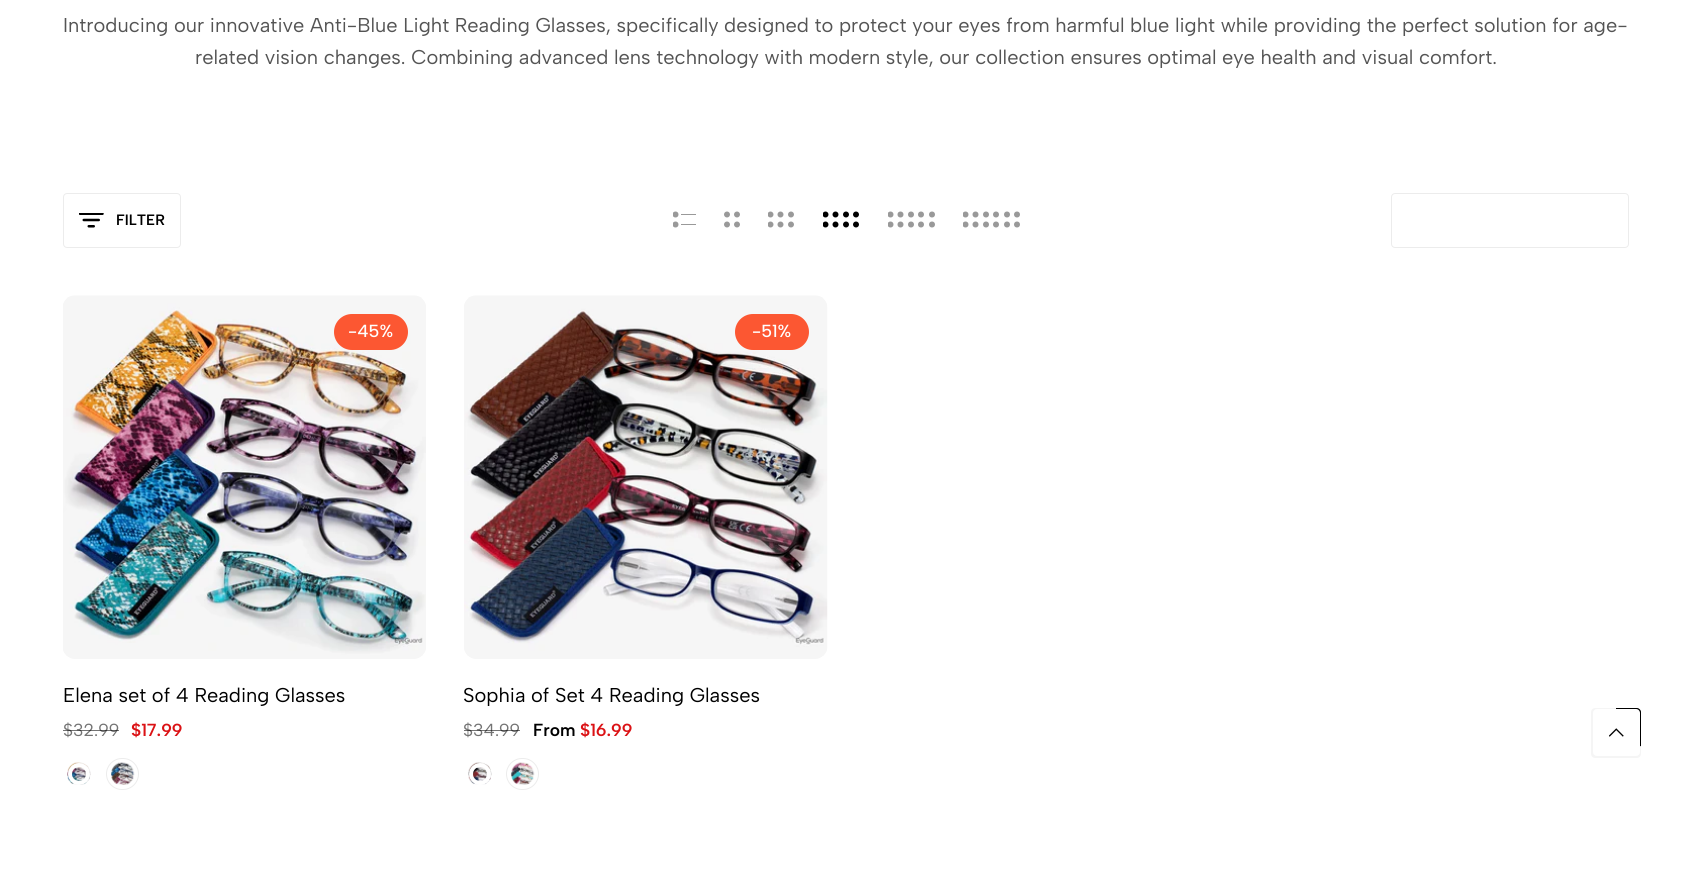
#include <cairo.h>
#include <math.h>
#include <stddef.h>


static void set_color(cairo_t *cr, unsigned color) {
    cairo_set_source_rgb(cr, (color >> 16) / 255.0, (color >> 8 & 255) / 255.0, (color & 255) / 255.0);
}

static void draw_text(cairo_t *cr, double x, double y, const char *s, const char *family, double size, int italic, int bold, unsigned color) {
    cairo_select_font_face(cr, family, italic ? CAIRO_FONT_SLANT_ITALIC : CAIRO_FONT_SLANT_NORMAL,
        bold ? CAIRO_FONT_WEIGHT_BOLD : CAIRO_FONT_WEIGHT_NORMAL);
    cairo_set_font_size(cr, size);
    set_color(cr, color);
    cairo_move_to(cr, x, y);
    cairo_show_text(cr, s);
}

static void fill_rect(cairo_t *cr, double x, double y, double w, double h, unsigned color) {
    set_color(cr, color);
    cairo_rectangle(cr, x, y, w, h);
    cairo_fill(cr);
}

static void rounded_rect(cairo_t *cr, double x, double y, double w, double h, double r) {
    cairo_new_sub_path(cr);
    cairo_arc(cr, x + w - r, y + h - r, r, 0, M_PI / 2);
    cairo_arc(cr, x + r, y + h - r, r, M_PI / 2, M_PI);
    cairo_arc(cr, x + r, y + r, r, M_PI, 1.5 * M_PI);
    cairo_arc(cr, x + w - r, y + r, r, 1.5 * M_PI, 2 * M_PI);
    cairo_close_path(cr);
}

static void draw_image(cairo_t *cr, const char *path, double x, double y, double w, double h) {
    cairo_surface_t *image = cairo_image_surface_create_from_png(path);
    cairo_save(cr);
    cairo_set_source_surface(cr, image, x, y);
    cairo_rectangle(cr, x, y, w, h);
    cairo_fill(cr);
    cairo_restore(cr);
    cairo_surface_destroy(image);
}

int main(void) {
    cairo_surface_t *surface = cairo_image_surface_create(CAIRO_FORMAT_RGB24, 1691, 869);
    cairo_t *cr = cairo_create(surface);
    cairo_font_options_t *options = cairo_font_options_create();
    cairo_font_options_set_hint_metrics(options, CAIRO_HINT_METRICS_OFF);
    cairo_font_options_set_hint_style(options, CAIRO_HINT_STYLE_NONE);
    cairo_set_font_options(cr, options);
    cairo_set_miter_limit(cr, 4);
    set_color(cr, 0xFFFFFF);
    cairo_paint(cr);
    draw_text(cr, 63, 32, "Introducing our innovative Anti-Blue Light Reading Glasses, specifically designed to protect your eyes from harmful blue light while providing the perfect solution for age-", "Albert Sans", 20, 0, 0, 0x545454);
    draw_text(cr, 195, 64, "related vision changes. Combining advanced lens technology with modern style, our collection ensures optimal eye health and visual comfort.", "Albert Sans", 20, 0, 0, 0x545454);
    rounded_rect(cr, 63.5, 193.5, 117, 54, 3.5);
    set_color(cr, 0xECECEC);
    cairo_set_line_width(cr, 1);
    cairo_stroke(cr);
    draw_image(cr, "assets/img1.png", 79, 213, 25, 15);
    draw_text(cr, 116, 225, "FILTER", "Albert Sans SemiBold", 15, 0, 0, 0x000000);
    cairo_save(cr);
    cairo_rectangle(cr, 673, 211, 23, 17);
    cairo_clip(cr);
    set_color(cr, 0x999999);
    cairo_arc(cr, 675.5, 214.5, 3, 0, 2 * M_PI);
    cairo_fill(cr);
    cairo_arc(cr, 675.5, 224.5, 3, 0, 2 * M_PI);
    cairo_fill(cr);
    cairo_restore(cr);
    fill_rect(cr, 681, 214, 15, 1, 0x999999);
    fill_rect(cr, 681, 224, 15, 1, 0x999999);
    draw_image(cr, "assets/img2.png", 724, 211, 16, 17);
    draw_image(cr, "assets/img3.png", 768, 211, 26, 17);
    draw_image(cr, "assets/img4.png", 823, 211, 36, 17);
    cairo_save(cr);
    cairo_rectangle(cr, 888, 211, 47, 17);
    cairo_clip(cr);
    cairo_arc(cr, 890.5, 214.5, 3, 0, 2 * M_PI);
    cairo_fill(cr);
    cairo_restore(cr);
    cairo_arc(cr, 900.5, 214.5, 3, 0, 2 * M_PI);
    cairo_fill(cr);
    cairo_arc(cr, 911, 214.5, 3, 0, 2 * M_PI);
    cairo_fill(cr);
    cairo_arc(cr, 921, 214.5, 3, 0, 2 * M_PI);
    cairo_fill(cr);
    cairo_arc(cr, 932, 214.5, 3, 0, 2 * M_PI);
    cairo_fill(cr);
    cairo_save(cr);
    cairo_rectangle(cr, 888, 211, 47, 17);
    cairo_clip(cr);
    cairo_arc(cr, 890.5, 224.5, 3, 0, 2 * M_PI);
    cairo_fill(cr);
    cairo_restore(cr);
    cairo_arc(cr, 900.5, 224.5, 3, 0, 2 * M_PI);
    cairo_fill(cr);
    cairo_arc(cr, 911, 224.5, 3, 0, 2 * M_PI);
    cairo_fill(cr);
    cairo_arc(cr, 921, 224.5, 3, 0, 2 * M_PI);
    cairo_fill(cr);
    cairo_arc(cr, 932, 224.5, 3, 0, 2 * M_PI);
    cairo_fill(cr);
    cairo_save(cr);
    cairo_rectangle(cr, 963, 211, 57, 17);
    cairo_clip(cr);
    cairo_arc(cr, 965.5, 214.5, 3, 0, 2 * M_PI);
    cairo_fill(cr);
    cairo_restore(cr);
    cairo_arc(cr, 975.5, 214.5, 3, 0, 2 * M_PI);
    cairo_fill(cr);
    cairo_arc(cr, 986, 214.5, 3, 0, 2 * M_PI);
    cairo_fill(cr);
    cairo_arc(cr, 996, 214.5, 3, 0, 2 * M_PI);
    cairo_fill(cr);
    cairo_arc(cr, 1007, 214.5, 3, 0, 2 * M_PI);
    cairo_fill(cr);
    cairo_arc(cr, 1017, 214.5, 3, 0, 2 * M_PI);
    cairo_fill(cr);
    cairo_save(cr);
    cairo_rectangle(cr, 963, 211, 57, 17);
    cairo_clip(cr);
    cairo_arc(cr, 965.5, 224.5, 3, 0, 2 * M_PI);
    cairo_fill(cr);
    cairo_restore(cr);
    cairo_arc(cr, 975.5, 224.5, 3, 0, 2 * M_PI);
    cairo_fill(cr);
    cairo_arc(cr, 986, 224.5, 3, 0, 2 * M_PI);
    cairo_fill(cr);
    cairo_arc(cr, 996, 224.5, 3, 0, 2 * M_PI);
    cairo_fill(cr);
    cairo_arc(cr, 1007, 224.5, 3, 0, 2 * M_PI);
    cairo_fill(cr);
    cairo_arc(cr, 1017, 224.5, 3, 0, 2 * M_PI);
    cairo_fill(cr);
    rounded_rect(cr, 1391.5, 193.5, 237, 54, 3.5);
    set_color(cr, 0xECECEC);
    cairo_stroke(cr);
    draw_image(cr, "assets/img5.png", 63, 295, 363, 364);
    set_color(cr, 0xFC5732);
    rounded_rect(cr, 334, 314, 74, 36, 18);
    cairo_fill(cr);
    draw_text(cr, 348, 337, "-45%", "Albert Sans Medium", 17.5, 0, 0, 0xFFFFFF);
    draw_text(cr, 63, 702, "Elena set of 4 Reading Glasses", "Albert Sans", 20, 0, 0, 0x000000);
    draw_text(cr, 63, 736, "$32.99", "Albert Sans", 17.5, 0, 0, 0x737373);
    cairo_set_source_rgba(cr, 0, 0, 0, 0.55);
    cairo_rectangle(cr, 63, 730, 56, 1);
    cairo_fill(cr);
    draw_text(cr, 131, 736, "$17.99", "Albert Sans SemiBold", 17.5, 0, 0, 0xDB1215);
    draw_image(cr, "assets/img6.png", 67, 762, 24, 23);
    cairo_arc(cr, 79, 774, 9, 0, 2 * M_PI);
    set_color(cr, 0xFFFFFF);
    cairo_set_line_width(cr, 4);
    cairo_stroke(cr);
    rounded_rect(cr, 106.5, 758.5, 32, 31, 15.5);
    set_color(cr, 0xECECEC);
    cairo_set_line_width(cr, 1);
    cairo_stroke(cr);
    draw_image(cr, "assets/img7.png", 111, 762, 24, 23);
    draw_image(cr, "assets/img8.png", 464, 295, 364, 364);
    set_color(cr, 0xFC5732);
    rounded_rect(cr, 735, 314, 74, 36, 18);
    cairo_fill(cr);
    draw_text(cr, 752, 337, "-51%", "Albert Sans Medium", 17.5, 0, 0, 0xFFFFFF);
    draw_text(cr, 463, 702, "Sophia of Set 4 Reading Glasses", "Albert Sans", 20, 0, 0, 0x000000);
    draw_text(cr, 463, 736, "$34.99", "Albert Sans", 17.5, 0, 0, 0x737373);
    cairo_set_source_rgba(cr, 0, 0, 0, 0.55);
    cairo_rectangle(cr, 464, 730, 56, 1);
    cairo_fill(cr);
    draw_text(cr, 533, 736, "From", "Albert Sans SemiBold", 17.5, 0, 0, 0x000000);
    draw_text(cr, 580, 736, "$16.99", "Albert Sans SemiBold", 17.5, 0, 0, 0xDB1215);
    draw_image(cr, "assets/img9.png", 468, 762, 24, 23);
    cairo_arc(cr, 480, 774, 9, 0, 2 * M_PI);
    set_color(cr, 0xFFFFFF);
    cairo_set_line_width(cr, 4);
    cairo_stroke(cr);
    rounded_rect(cr, 506.5, 758.5, 32, 31, 15.5);
    set_color(cr, 0xECECEC);
    cairo_set_line_width(cr, 1);
    cairo_stroke(cr);
    draw_image(cr, "assets/img10.png", 511, 762, 24, 23);
    set_color(cr, 0x000000);
    cairo_new_path(cr);
    cairo_move_to(cr, 1616, 732);
    cairo_line_to(cr, 1641, 746.5);
    cairo_line_to(cr, 1641, 712);
    cairo_curve_to(cr, 1641, 710, 1639, 708, 1637, 708);
    cairo_line_to(cr, 1616, 708);
    cairo_close_path(cr);
    cairo_fill(cr);
    set_color(cr, 0xF5F5F5);
    cairo_new_path(cr);
    cairo_move_to(cr, 1616, 732);
    cairo_line_to(cr, 1616, 708);
    cairo_line_to(cr, 1595, 708);
    cairo_curve_to(cr, 1593, 708, 1591, 710, 1591, 712);
    cairo_line_to(cr, 1591, 754);
    cairo_curve_to(cr, 1591, 756, 1593, 758, 1595, 758);
    cairo_line_to(cr, 1637, 758);
    cairo_curve_to(cr, 1639, 758, 1641, 756, 1641, 754);
    cairo_line_to(cr, 1641, 747);
    cairo_close_path(cr);
    cairo_fill(cr);
    set_color(cr, 0xFFFFFF);
    rounded_rect(cr, 1593, 709, 47, 47, 4);
    cairo_fill(cr);
    draw_image(cr, "assets/img11.png", 1609, 728, 15, 9);
    cairo_surface_write_to_png(surface, "output.png");
    cairo_font_options_destroy(options);
    cairo_destroy(cr);
    cairo_surface_destroy(surface);
    return 0;
}
